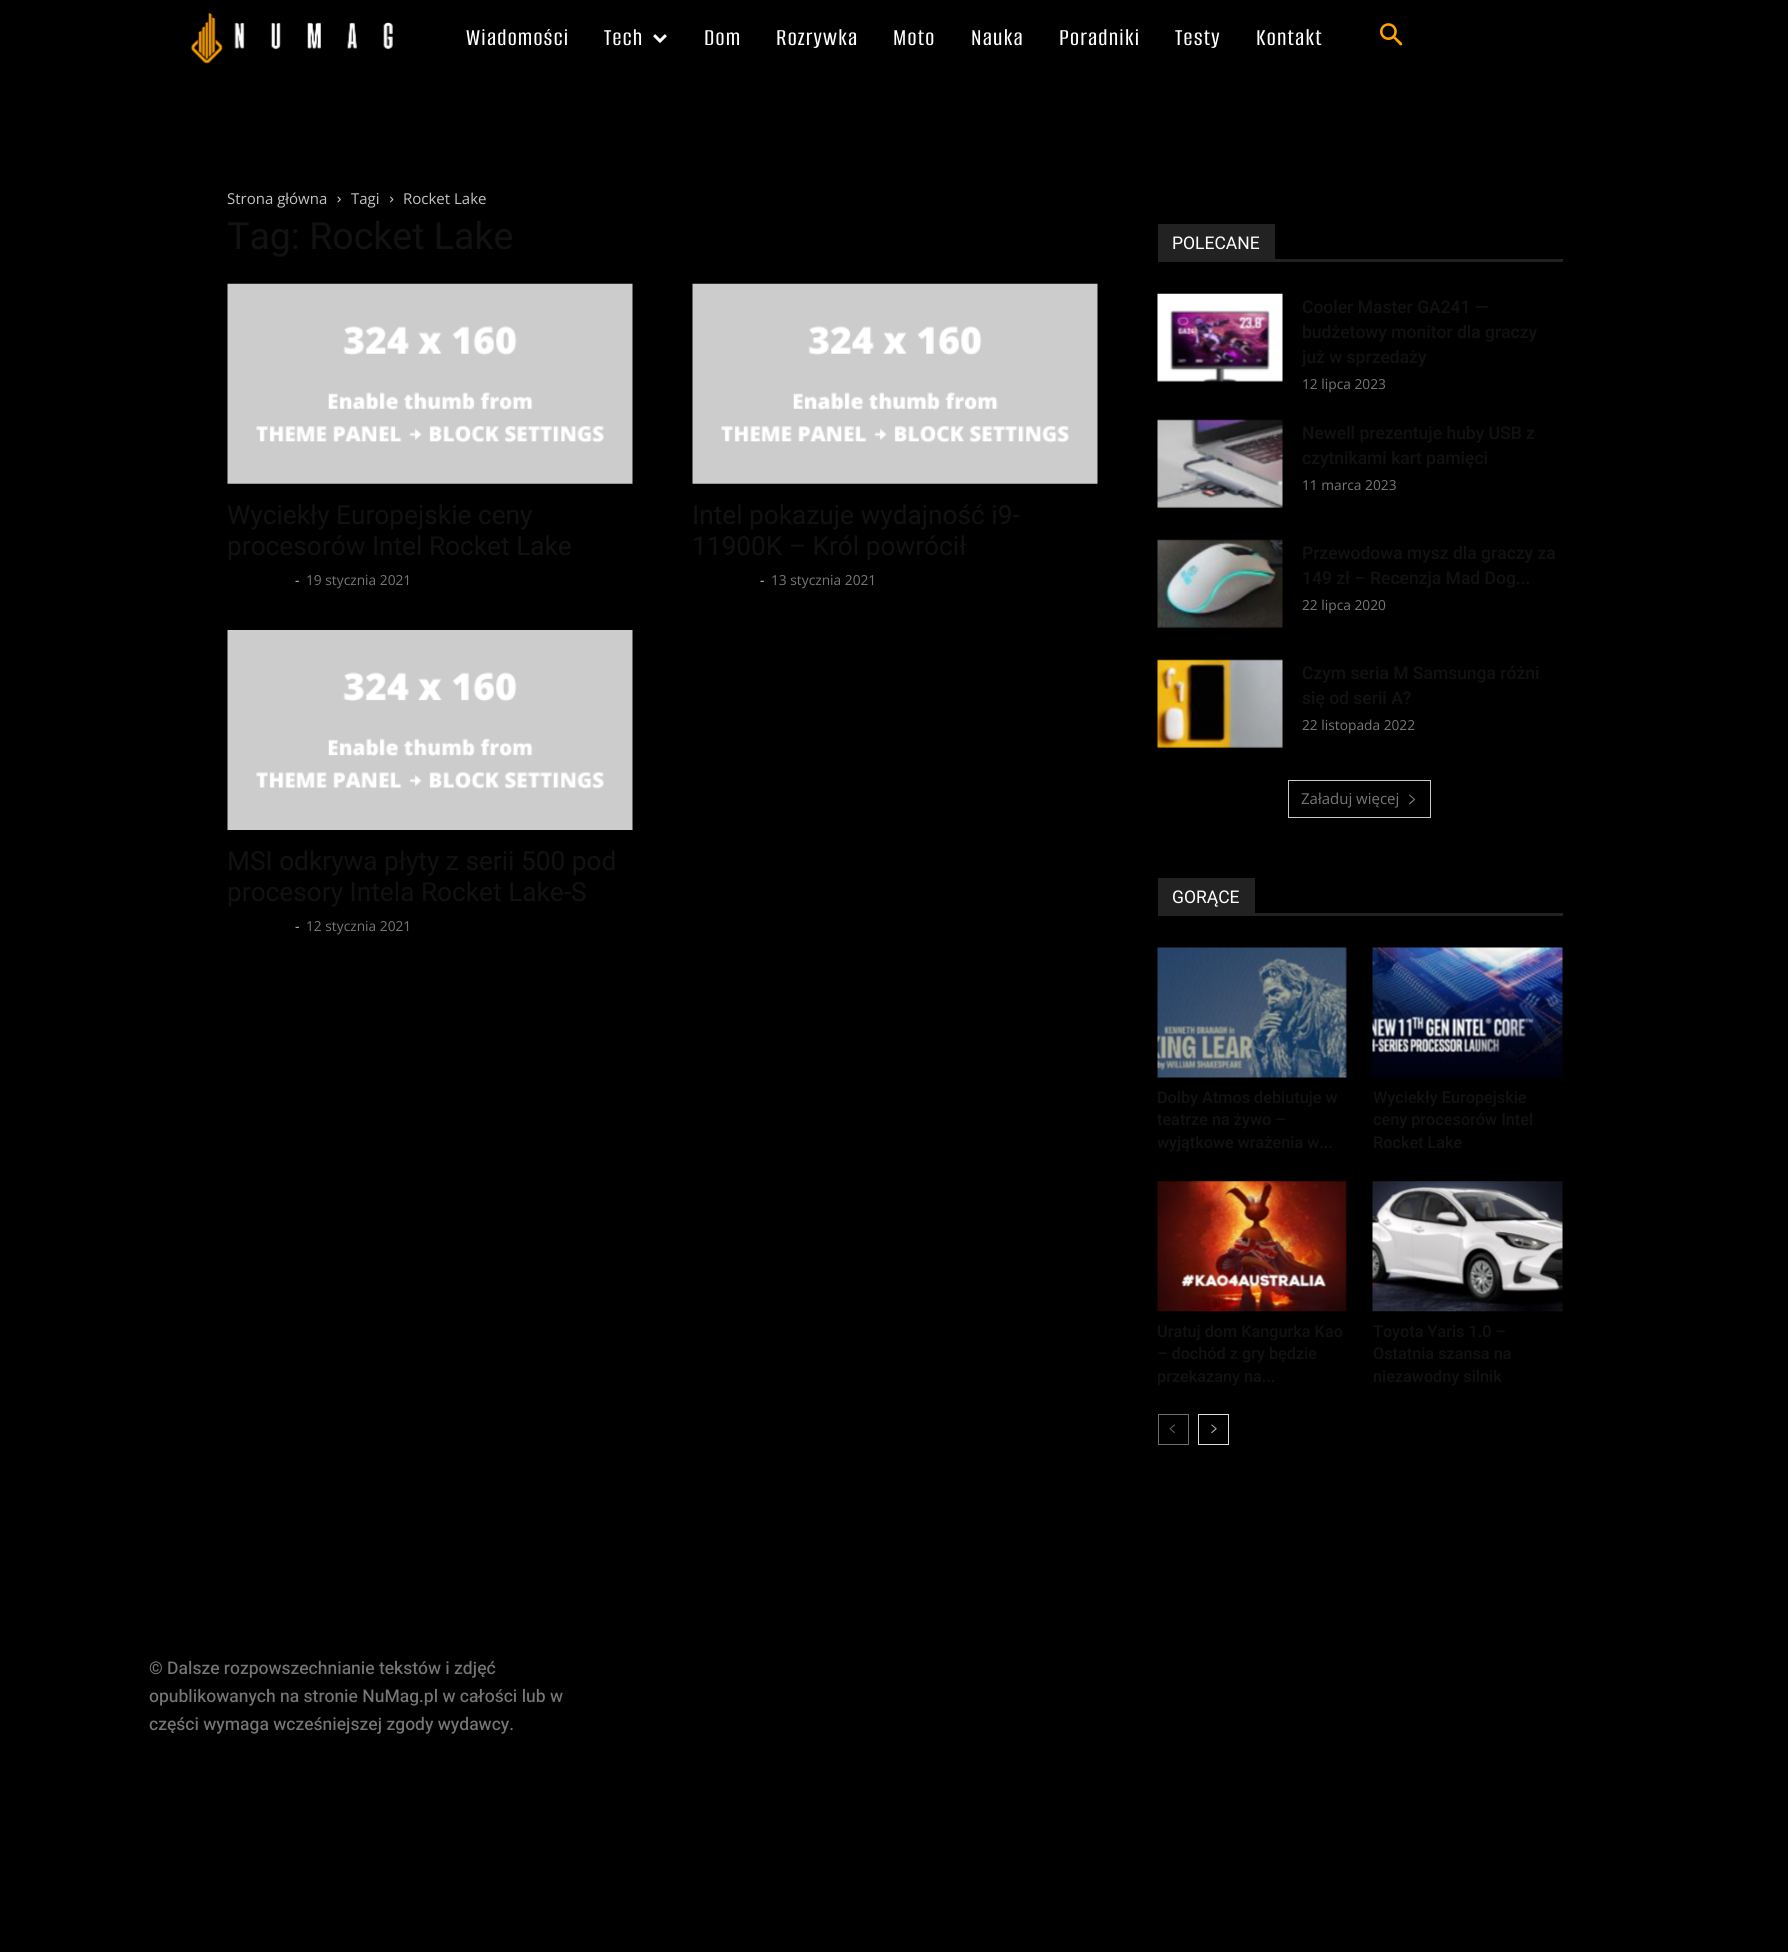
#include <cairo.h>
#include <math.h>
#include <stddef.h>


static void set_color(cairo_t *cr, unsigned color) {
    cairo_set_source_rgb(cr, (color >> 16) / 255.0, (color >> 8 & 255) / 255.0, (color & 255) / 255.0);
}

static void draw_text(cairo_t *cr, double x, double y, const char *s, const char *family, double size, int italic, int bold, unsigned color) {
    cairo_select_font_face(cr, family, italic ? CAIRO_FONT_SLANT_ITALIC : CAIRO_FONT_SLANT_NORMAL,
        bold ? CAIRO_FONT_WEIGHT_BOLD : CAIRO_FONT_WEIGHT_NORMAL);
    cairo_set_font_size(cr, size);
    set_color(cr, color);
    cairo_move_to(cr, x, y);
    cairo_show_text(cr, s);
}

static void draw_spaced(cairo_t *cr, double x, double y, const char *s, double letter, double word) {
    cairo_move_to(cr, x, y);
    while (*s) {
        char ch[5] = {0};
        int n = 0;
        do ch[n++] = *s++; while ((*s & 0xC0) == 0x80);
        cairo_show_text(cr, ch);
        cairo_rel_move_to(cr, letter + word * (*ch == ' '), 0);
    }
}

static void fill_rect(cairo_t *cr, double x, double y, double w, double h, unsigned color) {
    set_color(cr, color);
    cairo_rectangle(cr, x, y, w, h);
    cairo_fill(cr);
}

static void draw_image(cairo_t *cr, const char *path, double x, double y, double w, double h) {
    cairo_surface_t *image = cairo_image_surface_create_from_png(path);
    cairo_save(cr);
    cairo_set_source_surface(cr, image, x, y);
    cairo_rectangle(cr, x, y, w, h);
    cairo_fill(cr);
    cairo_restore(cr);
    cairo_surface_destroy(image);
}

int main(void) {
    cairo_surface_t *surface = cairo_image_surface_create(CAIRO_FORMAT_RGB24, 1788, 1952);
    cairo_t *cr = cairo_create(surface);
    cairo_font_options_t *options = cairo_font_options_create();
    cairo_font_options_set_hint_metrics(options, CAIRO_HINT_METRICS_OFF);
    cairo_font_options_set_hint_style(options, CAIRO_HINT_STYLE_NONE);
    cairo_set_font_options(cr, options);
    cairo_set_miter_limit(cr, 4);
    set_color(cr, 0x000000);
    cairo_paint(cr);
    draw_image(cr, "assets/img1.png", 190, 13, 203, 51);
    cairo_select_font_face(cr, "Alumni Sans Medium", CAIRO_FONT_SLANT_NORMAL, CAIRO_FONT_WEIGHT_NORMAL);
    cairo_set_font_size(cr, 25);
    set_color(cr, 0xFFFFFF);
    draw_spaced(cr, 466, 45, "Wiadomości", 1.25, 0);
    draw_spaced(cr, 604, 45, "Tech", 1.25, 0);
    draw_image(cr, "assets/img2.png", 653, 34, 14, 9);
    draw_spaced(cr, 704, 45, "Dom", 1.25, 0);
    draw_spaced(cr, 776, 45, "Rozrywka", 1.25, 0);
    draw_spaced(cr, 893, 45, "Moto", 1.25, 0);
    draw_spaced(cr, 971, 45, "Nauka", 1.25, 0);
    draw_spaced(cr, 1059, 45, "Poradniki", 1.25, 0);
    draw_spaced(cr, 1175, 45, "Testy", 1.25, 0);
    draw_spaced(cr, 1256, 45, "Kontakt", 1.25, 0);
    draw_image(cr, "assets/img3.png", 1380, 23, 23, 23);
    draw_text(cr, 227, 204, "Strona główna", "Open Sans", 15, 0, 0, 0xC3C3C3);
    draw_image(cr, "assets/img4.png", 337, 196, 4, 7);
    draw_text(cr, 351, 204, "Tagi", "Open Sans", 15, 0, 0, 0xC3C3C3);
    draw_image(cr, "assets/img5.png", 390, 196, 4, 7);
    draw_text(cr, 403, 204, "Rocket Lake", "Open Sans", 15, 0, 0, 0xC3C3C3);
    draw_text(cr, 227, 249, "Tag: Rocket Lake", "Roboto", 37.5, 0, 0, 0x111111);
    draw_image(cr, "assets/img6.png", 227, 283, 406, 201);
    draw_text(cr, 227, 524, "Wyciekły Europejskie ceny", "Roboto", 26.25, 0, 0, 0x111111);
    draw_text(cr, 227, 555, "procesorów Intel Rocket Lake", "Roboto", 26.25, 0, 0, 0x111111);
    draw_text(cr, 295, 585, "-", "Open Sans", 13.75, 0, 0, 0xCCCCCC);
    draw_text(cr, 306, 585, "19 stycznia 2021", "Open Sans", 13.75, 0, 0, 0x767676);
    draw_image(cr, "assets/img7.png", 692, 283, 406, 201);
    draw_text(cr, 692, 524, "Intel pokazuje wydajność i9-", "Roboto", 26.25, 0, 0, 0x111111);
    draw_text(cr, 692, 555, "11900K – Król powrócił", "Roboto", 26.25, 0, 0, 0x111111);
    draw_text(cr, 760, 585, "-", "Open Sans", 13.75, 0, 0, 0xCCCCCC);
    draw_text(cr, 771, 585, "13 stycznia 2021", "Open Sans", 13.75, 0, 0, 0x767676);
    draw_image(cr, "assets/img8.png", 227, 630, 406, 200);
    draw_text(cr, 227, 870, "MSI odkrywa płyty z serii 500 pod", "Roboto", 26.25, 0, 0, 0x111111);
    draw_text(cr, 227, 901, "procesory Intela Rocket Lake-S", "Roboto", 26.25, 0, 0, 0x111111);
    draw_text(cr, 295, 931, "-", "Open Sans", 13.75, 0, 0, 0xCCCCCC);
    draw_text(cr, 306, 931, "12 stycznia 2021", "Open Sans", 13.75, 0, 0, 0x767676);
    fill_rect(cr, 1158, 259, 405, 3, 0x222222);
    fill_rect(cr, 1158, 224, 117, 35, 0x222222);
    draw_text(cr, 1172, 249, "POLECANE", "Roboto", 17.5, 0, 0, 0xFFFFFF);
    draw_image(cr, "assets/img9.png", 1157, 293, 126, 89);
    draw_text(cr, 1302, 313, "Cooler Master GA241 —", "Roboto Medium", 17.5, 0, 0, 0x111111);
    draw_text(cr, 1302, 338, "budżetowy monitor dla graczy", "Roboto Medium", 17.5, 0, 0, 0x111111);
    draw_text(cr, 1302, 363, "już w sprzedaży", "Roboto Medium", 17.5, 0, 0, 0x111111);
    draw_text(cr, 1302, 389, "12 lipca 2023", "Open Sans", 13.75, 0, 0, 0x767676);
    draw_image(cr, "assets/img10.png", 1157, 419, 126, 89);
    draw_text(cr, 1302, 439, "Newell prezentuje huby USB z", "Roboto Medium", 17.5, 0, 0, 0x111111);
    draw_text(cr, 1302, 464, "czytnikami kart pamięci", "Roboto Medium", 17.5, 0, 0, 0x111111);
    draw_text(cr, 1302, 490, "11 marca 2023", "Open Sans", 13.75, 0, 0, 0x767676);
    draw_image(cr, "assets/img11.png", 1157, 539, 126, 89);
    draw_text(cr, 1302, 559, "Przewodowa mysz dla graczy za", "Roboto Medium", 17.5, 0, 0, 0x111111);
    draw_text(cr, 1302, 584, "149 zł – Recenzja Mad Dog...", "Roboto Medium", 17.5, 0, 0, 0x111111);
    draw_text(cr, 1302, 610, "22 lipca 2020", "Open Sans", 13.75, 0, 0, 0x767676);
    draw_image(cr, "assets/img12.png", 1157, 659, 126, 89);
    draw_text(cr, 1302, 679, "Czym seria M Samsunga różni", "Roboto Medium", 17.5, 0, 0, 0x111111);
    draw_text(cr, 1302, 704, "się od serii A?", "Roboto Medium", 17.5, 0, 0, 0x111111);
    draw_text(cr, 1302, 730, "22 listopada 2022", "Open Sans", 13.75, 0, 0, 0x767676);
    cairo_rectangle(cr, 1288.5, 780.5, 142, 37);
    set_color(cr, 0xC9C9C9);
    cairo_set_line_width(cr, 1);
    cairo_stroke(cr);
    draw_text(cr, 1301, 804, "Załaduj więcej", "Open Sans", 15, 0, 0, 0x767676);
    draw_image(cr, "assets/img13.png", 1409, 794, 7, 11);
    fill_rect(cr, 1158, 913, 405, 3, 0x222222);
    fill_rect(cr, 1158, 878, 97, 35, 0x222222);
    draw_text(cr, 1172, 903, "GORĄCE", "Roboto", 17.5, 0, 0, 0xFFFFFF);
    draw_image(cr, "assets/img14.png", 1157, 947, 190, 131);
    draw_text(cr, 1157, 1103, "Dolby Atmos debiutuje w", "Roboto Medium", 16.25, 0, 0, 0x111111);
    draw_text(cr, 1157, 1125, "teatrze na żywo –", "Roboto Medium", 16.25, 0, 0, 0x111111);
    cairo_save(cr);
    cairo_rectangle(cr, 1158, 878, 405, 567);
    cairo_clip(cr);
    draw_text(cr, 1157, 1148, "wyjątkowe wrażenia w...", "Roboto Medium", 16.25, 0, 0, 0x111111);
    cairo_restore(cr);
    draw_image(cr, "assets/img15.png", 1372, 947, 191, 131);
    draw_text(cr, 1373, 1103, "Wyciekły Europejskie", "Roboto Medium", 16.25, 0, 0, 0x111111);
    draw_text(cr, 1373, 1125, "ceny procesorów Intel", "Roboto Medium", 16.25, 0, 0, 0x111111);
    draw_text(cr, 1373, 1148, "Rocket Lake", "Roboto Medium", 16.25, 0, 0, 0x111111);
    draw_image(cr, "assets/img16.png", 1157, 1181, 190, 131);
    cairo_save(cr);
    cairo_rectangle(cr, 1158, 878, 405, 567);
    cairo_clip(cr);
    draw_text(cr, 1157, 1337, "Uratuj dom Kangurka Kao", "Roboto Medium", 16.25, 0, 0, 0x111111);
    cairo_restore(cr);
    draw_text(cr, 1157, 1359, "– dochód z gry będzie", "Roboto Medium", 16.25, 0, 0, 0x111111);
    cairo_save(cr);
    cairo_rectangle(cr, 1158, 878, 405, 567);
    cairo_clip(cr);
    draw_text(cr, 1157, 1382, "przekazany na...", "Roboto Medium", 16.25, 0, 0, 0x111111);
    cairo_restore(cr);
    draw_image(cr, "assets/img17.png", 1372, 1181, 191, 131);
    draw_text(cr, 1373, 1337, "Toyota Yaris 1.0 –", "Roboto Medium", 16.25, 0, 0, 0x111111);
    draw_text(cr, 1373, 1359, "Ostatnia szansa na", "Roboto Medium", 16.25, 0, 0, 0x111111);
    draw_text(cr, 1373, 1382, "niezawodny silnik", "Roboto Medium", 16.25, 0, 0, 0x111111);
    cairo_rectangle(cr, 1158.5, 1414.5, 30, 30);
    set_color(cr, 0x6E6E6E);
    cairo_stroke(cr);
    draw_image(cr, "assets/img18.png", 1169, 1424, 6, 9);
    cairo_rectangle(cr, 1198.5, 1414.5, 30, 30);
    set_color(cr, 0xDCDCDC);
    cairo_stroke(cr);
    draw_image(cr, "assets/img19.png", 1211, 1424, 6, 10);
    draw_text(cr, 149, 1674, "© Dalsze rozpowszechnianie tekstów i zdjęć", "Heebo Medium", 17.5, 0, 0, 0x767676);
    draw_text(cr, 149, 1702, "opublikowanych na stronie NuMag.pl w całości lub w", "Heebo Medium", 17.5, 0, 0, 0x767676);
    draw_text(cr, 149, 1730, "części wymaga wcześniejszej zgody wydawcy.", "Heebo Medium", 17.5, 0, 0, 0x767676);
    cairo_surface_write_to_png(surface, "output.png");
    cairo_font_options_destroy(options);
    cairo_destroy(cr);
    cairo_surface_destroy(surface);
    return 0;
}
